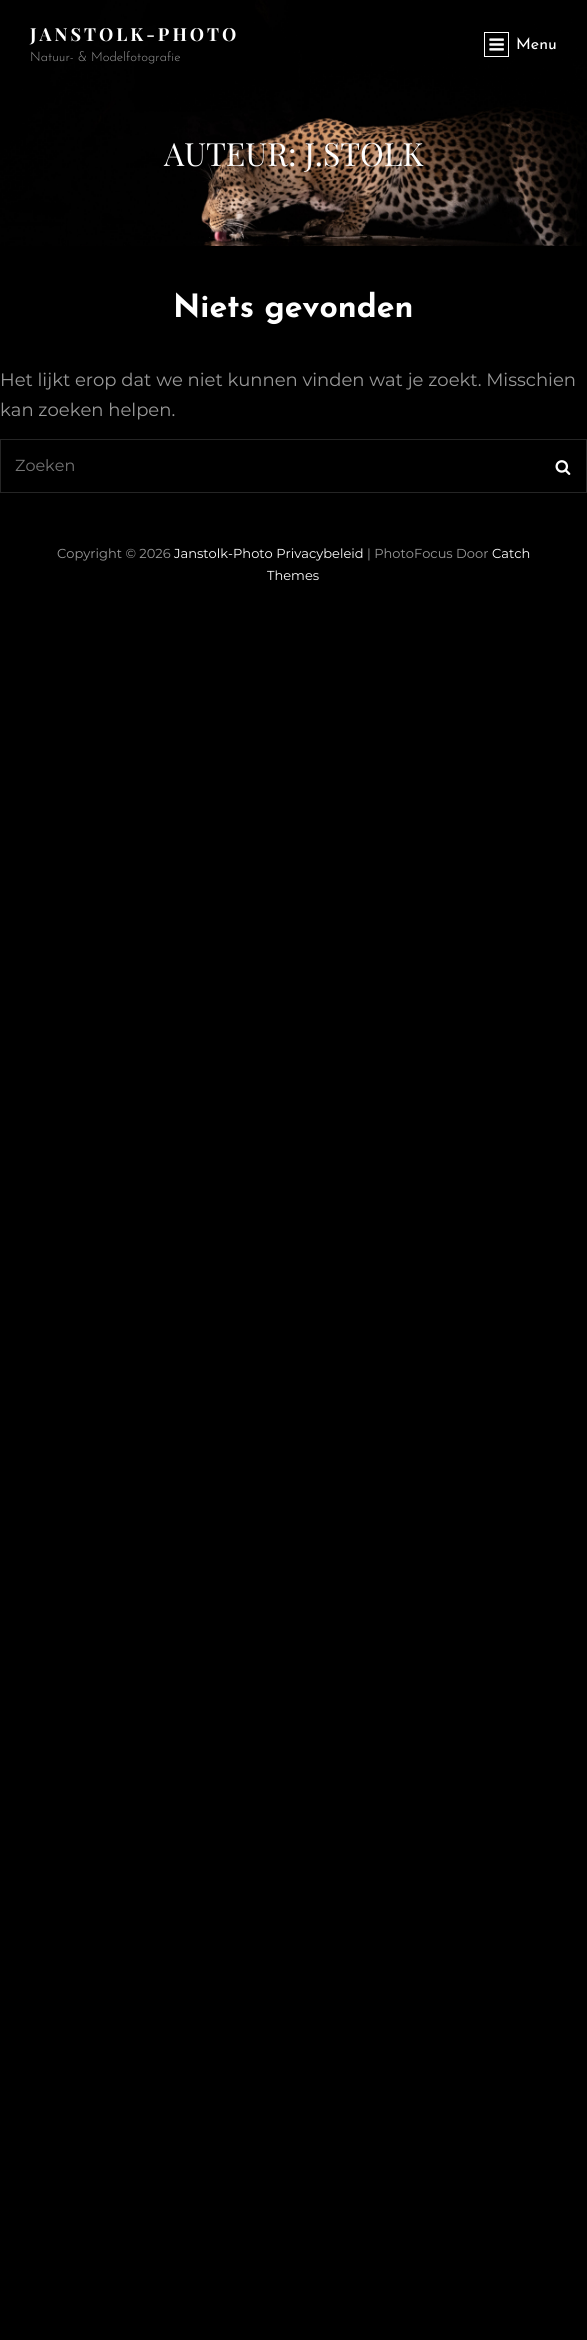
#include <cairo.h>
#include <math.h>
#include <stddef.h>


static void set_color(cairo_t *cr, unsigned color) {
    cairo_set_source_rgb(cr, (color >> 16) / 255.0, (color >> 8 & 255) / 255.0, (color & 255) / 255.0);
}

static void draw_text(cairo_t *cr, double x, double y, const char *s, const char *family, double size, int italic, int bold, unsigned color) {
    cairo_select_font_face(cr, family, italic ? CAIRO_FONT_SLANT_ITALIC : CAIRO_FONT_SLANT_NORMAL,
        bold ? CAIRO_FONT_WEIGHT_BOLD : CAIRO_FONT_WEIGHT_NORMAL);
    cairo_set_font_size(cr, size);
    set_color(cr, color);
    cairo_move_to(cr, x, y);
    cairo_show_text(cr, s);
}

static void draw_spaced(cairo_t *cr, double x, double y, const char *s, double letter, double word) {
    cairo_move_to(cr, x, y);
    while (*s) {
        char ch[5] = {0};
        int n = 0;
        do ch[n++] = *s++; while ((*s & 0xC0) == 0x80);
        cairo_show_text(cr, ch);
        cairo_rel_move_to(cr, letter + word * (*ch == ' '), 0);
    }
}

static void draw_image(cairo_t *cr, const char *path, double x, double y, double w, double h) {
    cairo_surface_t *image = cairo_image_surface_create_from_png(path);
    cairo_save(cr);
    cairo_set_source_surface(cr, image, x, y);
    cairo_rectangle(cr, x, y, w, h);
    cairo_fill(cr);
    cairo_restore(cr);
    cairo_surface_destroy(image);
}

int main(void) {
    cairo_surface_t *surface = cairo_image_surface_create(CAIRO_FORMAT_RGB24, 587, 2340);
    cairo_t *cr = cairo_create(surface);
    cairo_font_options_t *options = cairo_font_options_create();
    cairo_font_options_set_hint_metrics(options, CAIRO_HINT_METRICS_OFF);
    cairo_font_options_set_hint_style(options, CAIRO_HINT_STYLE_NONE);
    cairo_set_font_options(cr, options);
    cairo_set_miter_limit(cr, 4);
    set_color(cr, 0x000000);
    cairo_paint(cr);
    draw_image(cr, "assets/img2.png", 0, 0, 587, 246);
    cairo_select_font_face(cr, "Playfair Display", CAIRO_FONT_SLANT_NORMAL, CAIRO_FONT_WEIGHT_BOLD);
    cairo_set_font_size(cr, 18);
    set_color(cr, 0xFFFFFF);
    draw_spaced(cr, 30, 41, "JANSTOLK-PHOTO", 3, 0);
    draw_text(cr, 30, 61, "Natuur- & Modelfotografie", "Josefin Sans Light", 13, 0, 0, 0x999999);
    cairo_rectangle(cr, 484.5, 32.5, 24, 24);
    set_color(cr, 0xFFFFFF);
    cairo_set_line_width(cr, 1);
    cairo_stroke(cr);
    draw_image(cr, "assets/img1.png", 489, 38, 15, 13);
    draw_text(cr, 516, 49, "Menu", "Josefin Sans", 16, 0, 0, 0xFFFFFF);
    draw_text(cr, 164, 166, "AUTEUR: J.STOLK", "Playfair Display", 32, 0, 0, 0xFFFFFF);
    draw_text(cr, 173, 317, "Niets gevonden", "Josefin Sans", 32, 0, 1, 0xFFFFFF);
    draw_text(cr, 0, 386, "Het lijkt erop dat we niet kunnen vinden wat je zoekt. Misschien", "Montserrat", 18, 0, 0, 0x999999);
    draw_text(cr, 0, 416, "kan zoeken helpen.", "Montserrat", 18, 0, 0, 0x999999);
    cairo_rectangle(cr, 0.5, 439.5, 586, 53);
    set_color(cr, 0x252525);
    cairo_stroke(cr);
    draw_text(cr, 15, 471, "Zoeken", "Montserrat", 16, 0, 0, 0x757575);
    draw_image(cr, "assets/img3.png", 555, 460, 16, 15);
    draw_text(cr, 57, 558, "Copyright © 2026", "Montserrat", 13, 0, 0, 0x999999);
    draw_text(cr, 174, 558, "Janstolk-Photo Privacybeleid", "Montserrat", 13, 0, 0, 0xFFFFFF);
    draw_text(cr, 367, 558, "| PhotoFocus Door", "Montserrat", 13, 0, 0, 0x999999);
    draw_text(cr, 492, 558, "Catch", "Montserrat", 13, 0, 0, 0xFFFFFF);
    draw_text(cr, 267, 580, "Themes", "Montserrat", 13, 0, 0, 0xFFFFFF);
    cairo_surface_write_to_png(surface, "output.png");
    cairo_font_options_destroy(options);
    cairo_destroy(cr);
    cairo_surface_destroy(surface);
    return 0;
}
